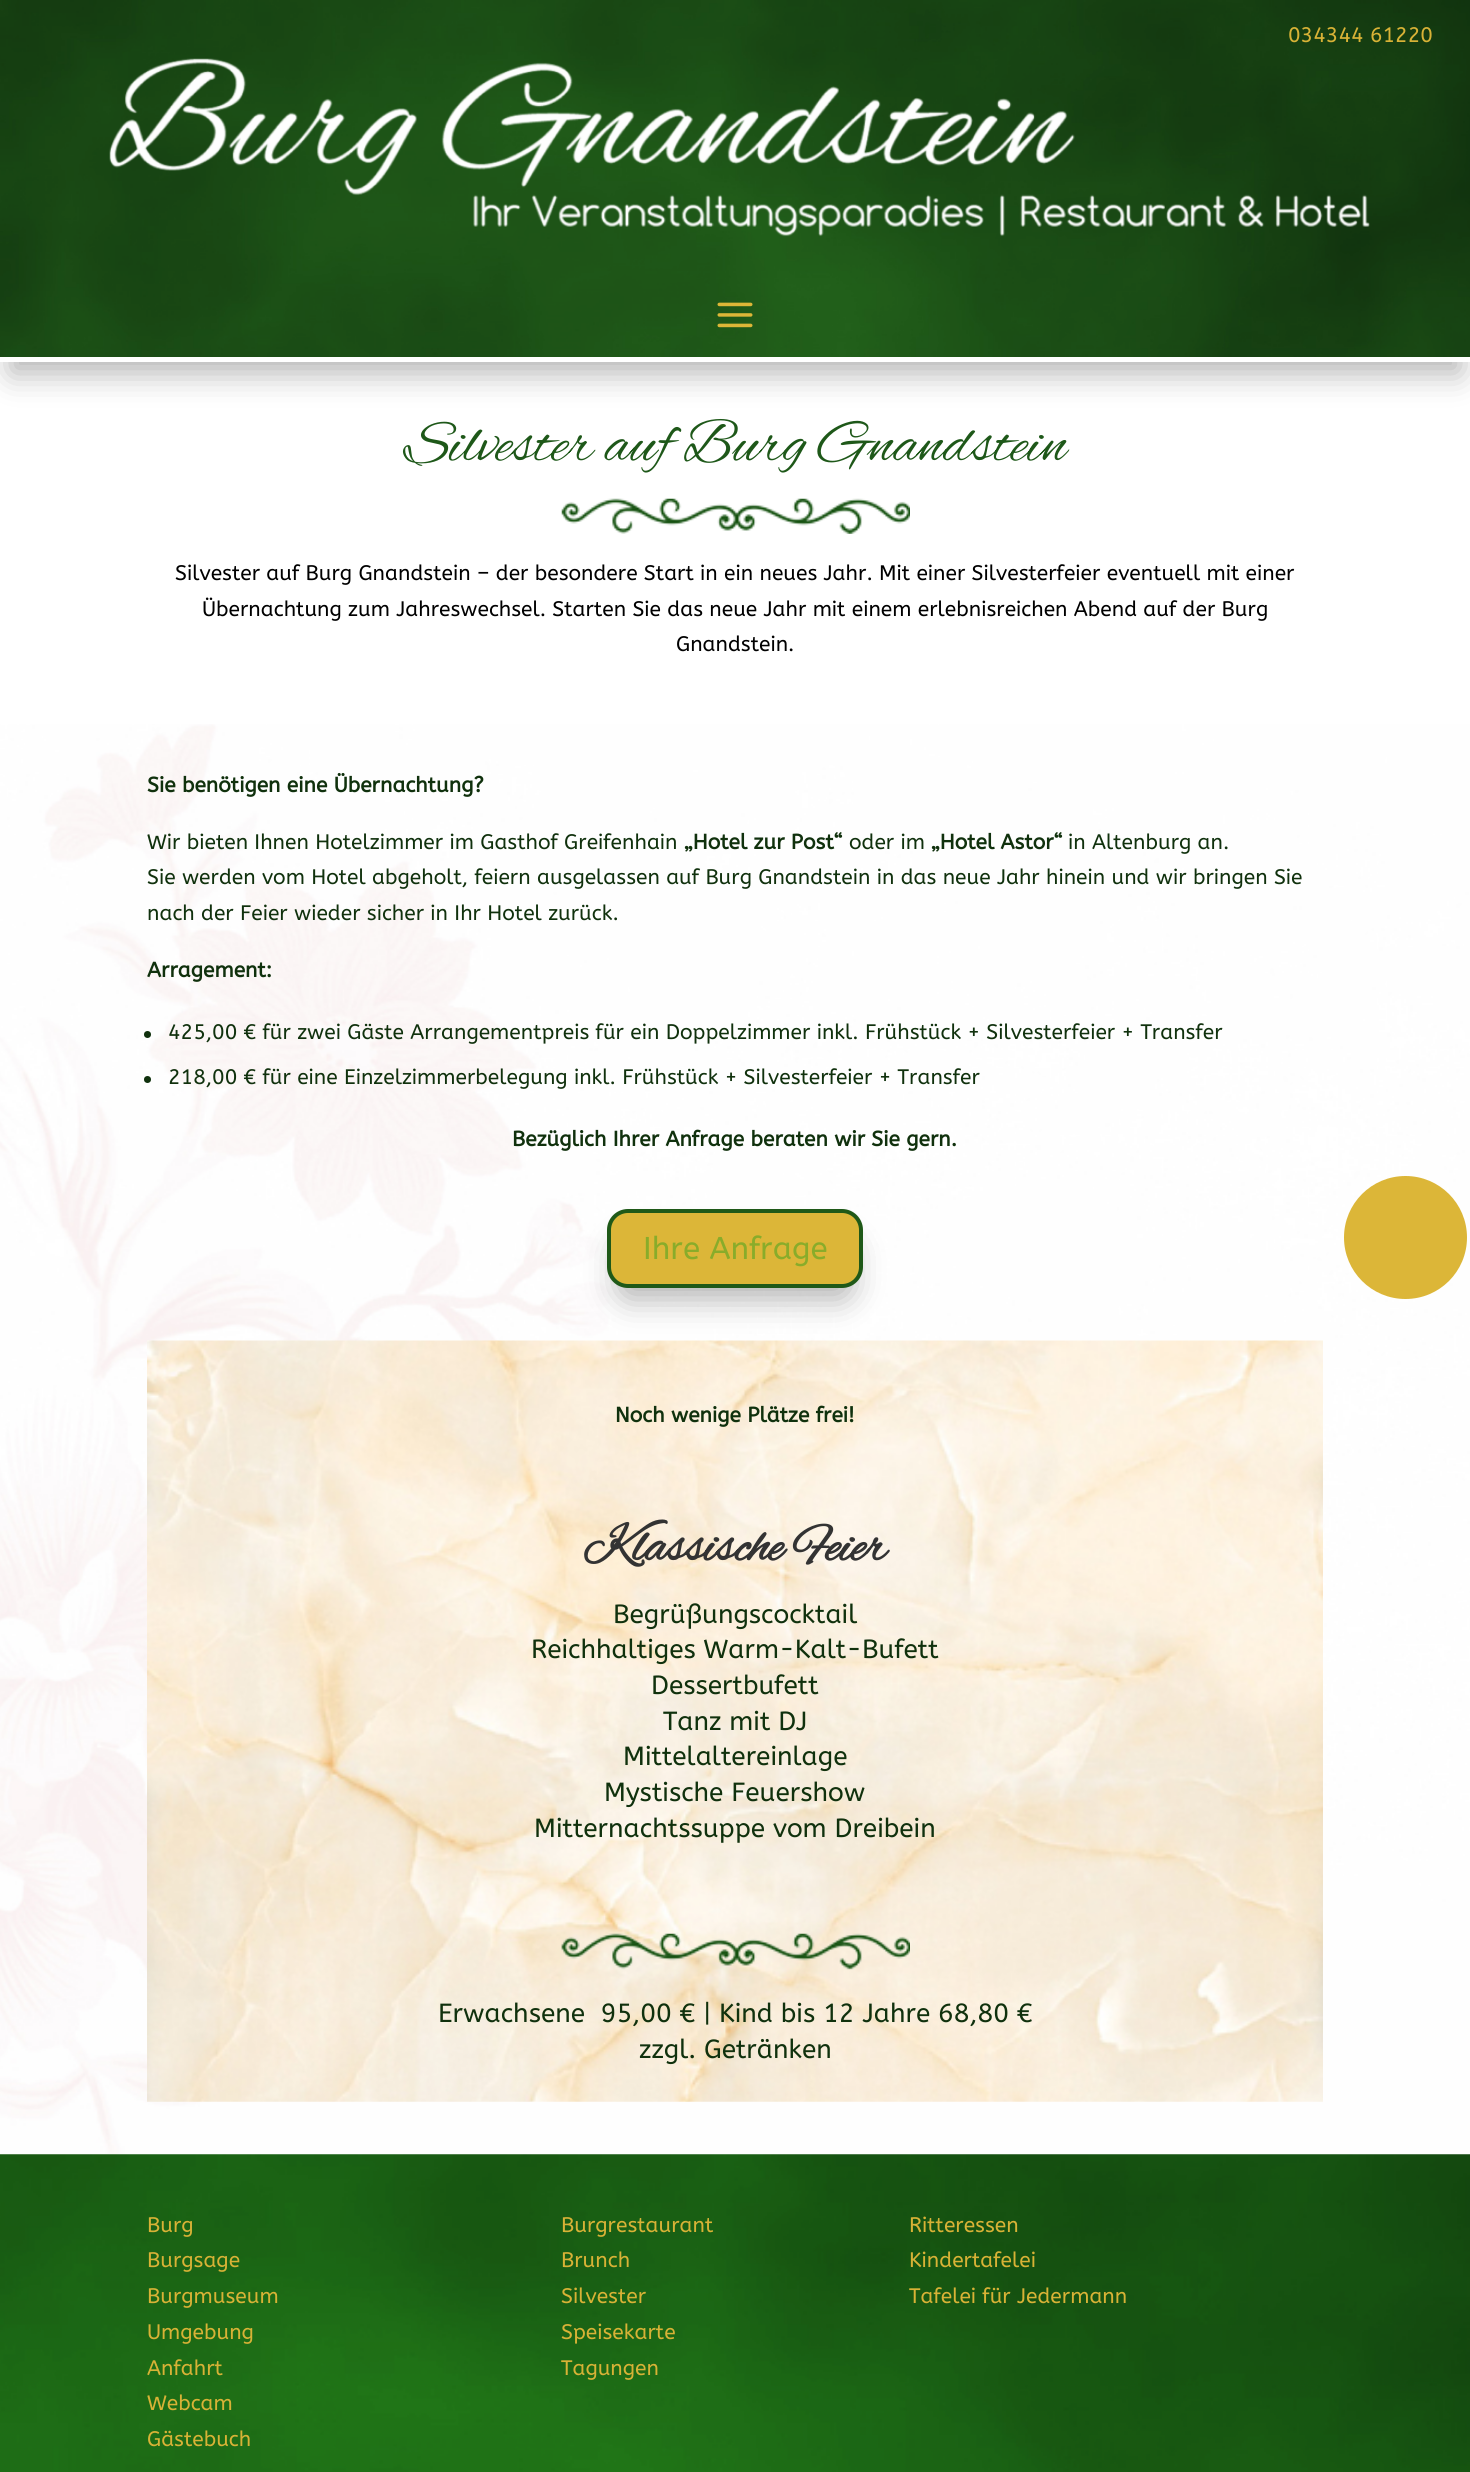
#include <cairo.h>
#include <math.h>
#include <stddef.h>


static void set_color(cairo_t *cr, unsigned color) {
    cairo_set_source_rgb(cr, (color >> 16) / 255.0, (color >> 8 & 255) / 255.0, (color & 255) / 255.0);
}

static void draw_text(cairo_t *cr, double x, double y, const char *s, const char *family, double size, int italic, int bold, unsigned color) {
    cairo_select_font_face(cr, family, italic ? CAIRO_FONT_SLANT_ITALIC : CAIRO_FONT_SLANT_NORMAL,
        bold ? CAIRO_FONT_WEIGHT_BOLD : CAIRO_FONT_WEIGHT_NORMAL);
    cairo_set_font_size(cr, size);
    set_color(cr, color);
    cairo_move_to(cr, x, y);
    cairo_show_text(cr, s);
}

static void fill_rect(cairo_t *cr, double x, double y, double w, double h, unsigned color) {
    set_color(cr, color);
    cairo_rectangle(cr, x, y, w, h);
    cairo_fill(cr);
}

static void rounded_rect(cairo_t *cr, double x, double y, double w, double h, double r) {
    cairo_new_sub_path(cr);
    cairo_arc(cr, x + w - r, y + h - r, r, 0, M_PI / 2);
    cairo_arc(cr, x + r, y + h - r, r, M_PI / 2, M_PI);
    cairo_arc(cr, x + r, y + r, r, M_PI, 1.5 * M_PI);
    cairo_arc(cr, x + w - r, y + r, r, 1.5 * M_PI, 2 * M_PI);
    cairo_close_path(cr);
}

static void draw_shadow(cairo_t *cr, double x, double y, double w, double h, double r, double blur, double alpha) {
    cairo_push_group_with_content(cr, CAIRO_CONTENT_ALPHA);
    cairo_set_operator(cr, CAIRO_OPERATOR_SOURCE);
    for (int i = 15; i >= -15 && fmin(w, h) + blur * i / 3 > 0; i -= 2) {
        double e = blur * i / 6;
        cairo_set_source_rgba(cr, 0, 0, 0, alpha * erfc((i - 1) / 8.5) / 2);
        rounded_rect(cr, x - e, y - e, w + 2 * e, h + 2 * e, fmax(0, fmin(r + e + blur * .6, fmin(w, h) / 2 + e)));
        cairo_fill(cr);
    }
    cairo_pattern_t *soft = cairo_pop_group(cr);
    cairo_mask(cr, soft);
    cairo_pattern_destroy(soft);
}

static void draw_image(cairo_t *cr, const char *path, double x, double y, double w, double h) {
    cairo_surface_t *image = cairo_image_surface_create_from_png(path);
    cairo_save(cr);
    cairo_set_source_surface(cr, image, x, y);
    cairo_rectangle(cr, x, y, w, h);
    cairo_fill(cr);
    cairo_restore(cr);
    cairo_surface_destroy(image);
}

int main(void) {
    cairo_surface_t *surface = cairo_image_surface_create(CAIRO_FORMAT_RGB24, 1470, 2472);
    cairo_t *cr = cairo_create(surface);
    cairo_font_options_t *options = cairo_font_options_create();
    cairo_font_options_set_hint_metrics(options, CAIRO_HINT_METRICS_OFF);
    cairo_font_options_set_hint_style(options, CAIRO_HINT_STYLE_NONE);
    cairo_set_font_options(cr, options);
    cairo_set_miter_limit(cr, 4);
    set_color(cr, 0xFFFFFF);
    cairo_paint(cr);
    set_color(cr, 0x000000);
    draw_shadow(cr, 11, 32, 1449, 341, 0, 16, 0.3);
    draw_image(cr, "assets/img1.png", 0, 0, 1470, 357);
    fill_rect(cr, 0, 357, 1470, 5, 0xFFFFFF);
    draw_text(cr, 1288, 42, "034344 61220", "ABeeZee", 21, 0, 0, 0xD8B236);
    draw_image(cr, "assets/img2.png", 109, 58, 1261, 179);
    draw_image(cr, "assets/img3.png", 717, 302, 36, 26);
    draw_image(cr, "assets/img4.png", 0, 724, 1470, 1431);
    draw_text(cr, 404, 460, "Silvester auf Burg Gnandstein", "Alex Brush", 61.25, 0, 0, 0x1E5819);
    draw_image(cr, "assets/img5.png", 561, 498, 349, 36);
    draw_text(cr, 175, 580, "Silvester auf Burg Gnandstein – der besondere Start in ein neues Jahr. Mit einer Silvesterfeier eventuell mit einer", "ABeeZee", 21, 0, 0, 0x000000);
    draw_text(cr, 202, 616, "Übernachtung zum Jahreswechsel. Starten Sie das neue Jahr mit einem erlebnisreichen Abend auf der Burg", "ABeeZee", 21, 0, 0, 0x000000);
    draw_text(cr, 676, 651, "Gnandstein.", "ABeeZee", 21, 0, 0, 0x000000);
    draw_text(cr, 147, 792, "Sie benötigen eine Übernachtung?", "ABeeZee", 21, 0, 1, 0x10310D);
    draw_text(cr, 147, 849, "Wir bieten Ihnen Hotelzimmer im Gasthof Greifenhain", "ABeeZee", 21, 0, 0, 0x10310D);
    draw_text(cr, 684, 849, "„Hotel zur Post“", "ABeeZee", 21, 0, 1, 0x10310D);
    draw_text(cr, 849, 849, "oder im", "ABeeZee", 21, 0, 0, 0x10310D);
    draw_text(cr, 931, 849, "„Hotel Astor“", "ABeeZee", 21, 0, 1, 0x10310D);
    draw_text(cr, 1068, 849, "in Altenburg an.", "ABeeZee", 21, 0, 0, 0x10310D);
    draw_text(cr, 147, 884, "Sie werden vom Hotel abgeholt, feiern ausgelassen auf Burg Gnandstein in das neue Jahr hinein und wir bringen Sie", "ABeeZee", 21, 0, 0, 0x10310D);
    draw_text(cr, 147, 920, "nach der Feier wieder sicher in Ihr Hotel zurück.", "ABeeZee", 21, 0, 0, 0x10310D);
    draw_text(cr, 147, 977, "Arragement:", "ABeeZee", 21, 0, 1, 0x10310D);
    cairo_new_path(cr);
    cairo_arc(cr, 147.5, 1034.5, 3.5, 0, 2 * M_PI);
    cairo_fill(cr);
    draw_text(cr, 168, 1039, "425,00 € für zwei Gäste Arrangementpreis für ein Doppelzimmer inkl. Frühstück + Silvesterfeier + Transfer", "ABeeZee", 21, 0, 0, 0x10310D);
    cairo_new_path(cr);
    cairo_arc(cr, 147.5, 1079.5, 3.5, 0, 2 * M_PI);
    cairo_fill(cr);
    draw_text(cr, 168, 1084, "218,00 € für eine Einzelzimmerbelegung inkl. Frühstück + Silvesterfeier + Transfer", "ABeeZee", 21, 0, 0, 0x10310D);
    draw_text(cr, 512, 1146, "Bezüglich Ihrer Anfrage beraten wir Sie gern.", "ABeeZee", 21, 0, 1, 0x10310D);
    set_color(cr, 0x000000);
    draw_shadow(cr, 618, 1241, 234, 58, 11, 16, 0.3);
    set_color(cr, 0xDCB638);
    rounded_rect(cr, 609, 1211, 252, 75, 19);
    cairo_fill_preserve(cr);
    set_color(cr, 0x1F5918);
    cairo_set_line_width(cr, 4);
    cairo_stroke(cr);
    draw_text(cr, 643, 1259, "Ihre Anfrage", "ABeeZee", 31.5, 0, 0, 0x89AC2A);
    draw_image(cr, "assets/img6.png", 147, 1340, 1176, 762);
    draw_text(cr, 615, 1422, "Noch wenige Plätze frei!", "ABeeZee", 21, 0, 1, 0x10310D);
    draw_text(cr, 583, 1560, "Klassische Feier", "Alex Brush", 52.5, 0, 1, 0x333333);
    draw_text(cr, 613, 1623, "Begrüßungscocktail", "ABeeZee", 26.25, 0, 0, 0x10310D);
    draw_text(cr, 531, 1658, "Reichhaltiges Warm-Kalt-Bufett", "ABeeZee", 26.25, 0, 0, 0x10310D);
    draw_text(cr, 651, 1694, "Dessertbufett", "ABeeZee", 26.25, 0, 0, 0x10310D);
    draw_text(cr, 663, 1730, "Tanz mit DJ", "ABeeZee", 26.25, 0, 0, 0x10310D);
    draw_text(cr, 623, 1765, "Mittelaltereinlage", "ABeeZee", 26.25, 0, 0, 0x10310D);
    draw_text(cr, 604, 1801, "Mystische Feuershow", "ABeeZee", 26.25, 0, 0, 0x10310D);
    draw_text(cr, 534, 1837, "Mitternachtssuppe vom Dreibein", "ABeeZee", 26.25, 0, 0, 0x10310D);
    draw_image(cr, "assets/img7.png", 561, 1933, 349, 37);
    draw_text(cr, 438, 2022, "Erwachsene  95,00 € | Kind bis 12 Jahre 68,80 €", "ABeeZee", 26.25, 0, 0, 0x10310D);
    draw_text(cr, 639, 2058, "zzgl. Getränken", "ABeeZee", 26.25, 0, 0, 0x10310D);
    draw_image(cr, "assets/img8.png", 0, 2154, 1470, 318);
    draw_text(cr, 147, 2232, "Burg", "ABeeZee", 21, 0, 0, 0xD8B236);
    draw_text(cr, 147, 2267, "Burgsage", "ABeeZee", 21, 0, 0, 0xD8B236);
    draw_text(cr, 147, 2303, "Burgmuseum", "ABeeZee", 21, 0, 0, 0xD8B236);
    draw_text(cr, 147, 2339, "Umgebung", "ABeeZee", 21, 0, 0, 0xD8B236);
    draw_text(cr, 147, 2375, "Anfahrt", "ABeeZee", 21, 0, 0, 0xD8B236);
    draw_text(cr, 147, 2410, "Webcam", "ABeeZee", 21, 0, 0, 0xD8B236);
    draw_text(cr, 147, 2446, "Gästebuch", "ABeeZee", 21, 0, 0, 0xD8B236);
    draw_text(cr, 561, 2232, "Burgrestaurant", "ABeeZee", 21, 0, 0, 0xD8B236);
    draw_text(cr, 561, 2267, "Brunch", "ABeeZee", 21, 0, 0, 0xD8B236);
    draw_text(cr, 561, 2303, "Silvester", "ABeeZee", 21, 0, 0, 0xD8B236);
    draw_text(cr, 561, 2339, "Speisekarte", "ABeeZee", 21, 0, 0, 0xD8B236);
    draw_text(cr, 561, 2375, "Tagungen", "ABeeZee", 21, 0, 0, 0xD8B236);
    draw_text(cr, 909, 2232, "Ritteressen", "ABeeZee", 21, 0, 0, 0xD8B236);
    draw_text(cr, 909, 2267, "Kindertafelei", "ABeeZee", 21, 0, 0, 0xD8B236);
    draw_text(cr, 909, 2303, "Tafelei für Jedermann", "ABeeZee", 21, 0, 0, 0xD8B236);
    set_color(cr, 0xDCB638);
    cairo_new_path(cr);
    cairo_arc(cr, 1405.5, 1237.5, 61.5, 0, 2 * M_PI);
    cairo_fill(cr);
    cairo_surface_write_to_png(surface, "output.png");
    cairo_font_options_destroy(options);
    cairo_destroy(cr);
    cairo_surface_destroy(surface);
    return 0;
}
